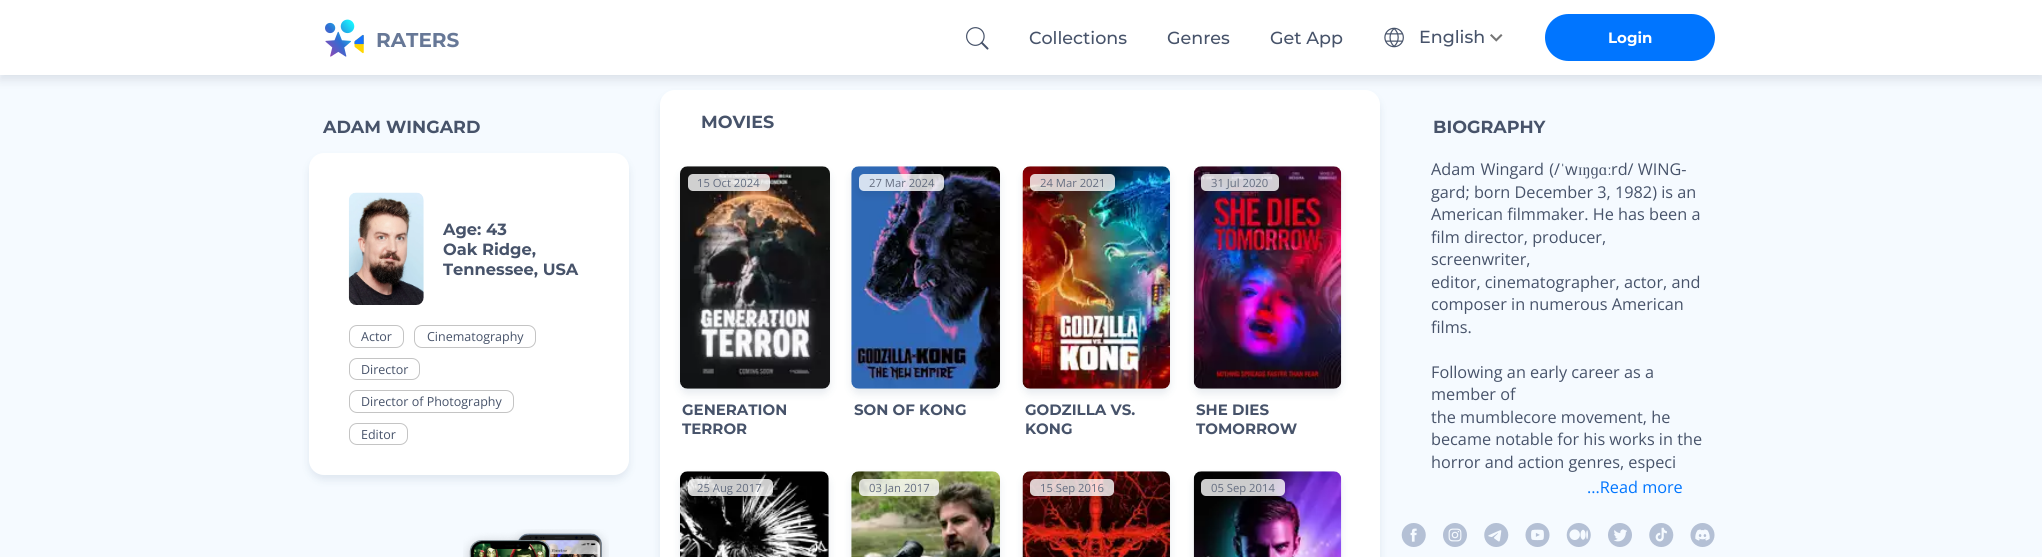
#include <cairo.h>
#include <math.h>
#include <stddef.h>


static void set_color(cairo_t *cr, unsigned color) {
    cairo_set_source_rgb(cr, (color >> 16) / 255.0, (color >> 8 & 255) / 255.0, (color & 255) / 255.0);
}

static void draw_text(cairo_t *cr, double x, double y, const char *s, const char *family, double size, int italic, int bold, unsigned color) {
    cairo_select_font_face(cr, family, italic ? CAIRO_FONT_SLANT_ITALIC : CAIRO_FONT_SLANT_NORMAL,
        bold ? CAIRO_FONT_WEIGHT_BOLD : CAIRO_FONT_WEIGHT_NORMAL);
    cairo_set_font_size(cr, size);
    set_color(cr, color);
    cairo_move_to(cr, x, y);
    cairo_show_text(cr, s);
}

static void draw_spaced(cairo_t *cr, double x, double y, const char *s, double letter, double word) {
    cairo_move_to(cr, x, y);
    while (*s) {
        char ch[5] = {0};
        int n = 0;
        do ch[n++] = *s++; while ((*s & 0xC0) == 0x80);
        cairo_show_text(cr, ch);
        cairo_rel_move_to(cr, letter + word * (*ch == ' '), 0);
    }
}

static void fill_rect(cairo_t *cr, double x, double y, double w, double h, unsigned color) {
    set_color(cr, color);
    cairo_rectangle(cr, x, y, w, h);
    cairo_fill(cr);
}

static void rounded_rect(cairo_t *cr, double x, double y, double w, double h, double r) {
    cairo_new_sub_path(cr);
    cairo_arc(cr, x + w - r, y + h - r, r, 0, M_PI / 2);
    cairo_arc(cr, x + r, y + h - r, r, M_PI / 2, M_PI);
    cairo_arc(cr, x + r, y + r, r, M_PI, 1.5 * M_PI);
    cairo_arc(cr, x + w - r, y + r, r, 1.5 * M_PI, 2 * M_PI);
    cairo_close_path(cr);
}

static void draw_shadow(cairo_t *cr, double x, double y, double w, double h, double r, double blur, double alpha) {
    cairo_push_group_with_content(cr, CAIRO_CONTENT_ALPHA);
    cairo_set_operator(cr, CAIRO_OPERATOR_SOURCE);
    for (int i = 15; i >= -15 && fmin(w, h) + blur * i / 3 > 0; i -= 2) {
        double e = blur * i / 6;
        cairo_set_source_rgba(cr, 0, 0, 0, alpha * erfc((i - 1) / 8.5) / 2);
        rounded_rect(cr, x - e, y - e, w + 2 * e, h + 2 * e, fmax(0, fmin(r + e + blur * .6, fmin(w, h) / 2 + e)));
        cairo_fill(cr);
    }
    cairo_pattern_t *soft = cairo_pop_group(cr);
    cairo_mask(cr, soft);
    cairo_pattern_destroy(soft);
}

static void draw_image(cairo_t *cr, const char *path, double x, double y, double w, double h) {
    cairo_surface_t *image = cairo_image_surface_create_from_png(path);
    cairo_save(cr);
    cairo_set_source_surface(cr, image, x, y);
    cairo_rectangle(cr, x, y, w, h);
    cairo_fill(cr);
    cairo_restore(cr);
    cairo_surface_destroy(image);
}

int main(void) {
    cairo_surface_t *surface = cairo_image_surface_create(CAIRO_FORMAT_RGB24, 2042, 557);
    cairo_t *cr = cairo_create(surface);
    cairo_font_options_t *options = cairo_font_options_create();
    cairo_font_options_set_hint_metrics(options, CAIRO_HINT_METRICS_OFF);
    cairo_font_options_set_hint_style(options, CAIRO_HINT_STYLE_NONE);
    cairo_set_font_options(cr, options);
    cairo_set_miter_limit(cr, 4);
    set_color(cr, 0xF5FAFF);
    cairo_paint(cr);
    set_color(cr, 0x1C4368);
    draw_shadow(cr, 660, 95, 720, 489, 15, 4, 0.1);
    set_color(cr, 0xFFFFFF);
    cairo_new_path(cr);
    cairo_move_to(cr, 675, 90);
    cairo_line_to(cr, 1365, 90);
    cairo_curve_to(cr, 1373.5, 90, 1380, 96.5, 1380, 105);
    cairo_line_to(cr, 1380, 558);
    cairo_line_to(cr, 660, 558);
    cairo_line_to(cr, 660, 105);
    cairo_curve_to(cr, 660, 96.5, 666.5, 90, 675, 90);
    cairo_close_path(cr);
    cairo_fill(cr);
    set_color(cr, 0x47536A);
    draw_shadow(cr, 0, 5, 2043, 75, 0, 5, 0.15);
    fill_rect(cr, 0, 0, 2042, 75, 0xFFFFFF);
    draw_image(cr, "assets/img1.png", 325, 19, 39, 38);
    draw_text(cr, 376, 47, "RATERS", "Montserrat", 20, 0, 1, 0x677897);
    draw_image(cr, "assets/img2.png", 966, 27, 23, 23);
    draw_text(cr, 1029, 44, "Collections", "Montserrat Medium", 17.5, 0, 0, 0x47536A);
    draw_text(cr, 1167, 44, "Genres", "Montserrat Medium", 17.5, 0, 0, 0x47536A);
    draw_text(cr, 1270, 44, "Get App", "Montserrat Medium", 17.5, 0, 0, 0x47536A);
    draw_image(cr, "assets/img3.png", 1384, 27, 20, 21);
    draw_text(cr, 1419, 43, "English", "Montserrat Medium", 17.5, 0, 0, 0x47536A);
    draw_image(cr, "assets/img4.png", 1490, 34, 13, 8);
    set_color(cr, 0x0075FF);
    rounded_rect(cr, 1545, 14, 170, 47, 23.5);
    cairo_fill(cr);
    draw_text(cr, 1608, 43, "Login", "Montserrat", 15, 0, 1, 0xFFFFFF);
    draw_text(cr, 323, 133, "ADAM WINGARD", "Montserrat", 17.5, 0, 1, 0x47536A);
    set_color(cr, 0x1C4368);
    draw_shadow(cr, 309, 158, 320, 322, 15, 4, 0.1);
    set_color(cr, 0xFFFFFF);
    rounded_rect(cr, 309, 153, 320, 322, 15);
    cairo_fill(cr);
    draw_image(cr, "assets/img5.png", 348, 192, 76, 113);
    draw_text(cr, 443, 235, "Age: 43", "Montserrat", 16.25, 0, 1, 0x47536A);
    draw_text(cr, 443, 255, "Oak Ridge,", "Montserrat", 16.25, 0, 1, 0x47536A);
    draw_text(cr, 443, 275, "Tennessee, USA", "Montserrat", 16.25, 0, 1, 0x47536A);
    rounded_rect(cr, 349.5, 325.5, 54, 22, 7.5);
    set_color(cr, 0xC4C4C4);
    cairo_set_line_width(cr, 1);
    cairo_stroke(cr);
    draw_text(cr, 361, 341, "Actor", "Open Sans", 12.5, 0, 0, 0x47536A);
    rounded_rect(cr, 414.5, 325.5, 121, 22, 7.5);
    set_color(cr, 0xC4C4C4);
    cairo_stroke(cr);
    draw_text(cr, 427, 341, "Cinematography", "Open Sans", 12.5, 0, 0, 0x47536A);
    rounded_rect(cr, 349.5, 358.5, 70, 21, 7.5);
    set_color(cr, 0xC4C4C4);
    cairo_stroke(cr);
    draw_text(cr, 361, 374, "Director", "Open Sans", 12.5, 0, 0, 0x47536A);
    rounded_rect(cr, 349.5, 390.5, 164, 22, 7.5);
    set_color(cr, 0xC4C4C4);
    cairo_stroke(cr);
    draw_text(cr, 361, 406, "Director of Photography", "Open Sans", 12.5, 0, 0, 0x47536A);
    rounded_rect(cr, 349.5, 423.5, 58, 21, 7.5);
    set_color(cr, 0xC4C4C4);
    cairo_stroke(cr);
    draw_text(cr, 361, 439, "Editor", "Open Sans", 12.5, 0, 0, 0x47536A);
    draw_image(cr, "assets/img6.png", 463, 529, 146, 28);
    draw_text(cr, 701, 128, "MOVIES", "Montserrat", 17.5, 0, 1, 0x47536A);
    set_color(cr, 0x1C4368);
    draw_shadow(cr, 680, 171, 150, 223, 8, 4, 0.1);
    draw_image(cr, "assets/img7.png", 680, 166, 150, 223);
    cairo_save(cr);
    cairo_set_fill_rule(cr, CAIRO_FILL_RULE_EVEN_ODD);
    cairo_new_path(cr);
    cairo_move_to(cr, 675, 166);
    cairo_line_to(cr, 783, 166);
    cairo_line_to(cr, 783, 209);
    cairo_line_to(cr, 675, 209);
    cairo_close_path(cr);
    cairo_move_to(cr, 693, 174);
    cairo_line_to(cr, 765, 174);
    cairo_curve_to(cr, 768, 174, 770, 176, 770, 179);
    cairo_line_to(cr, 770, 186);
    cairo_curve_to(cr, 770, 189, 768, 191, 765, 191);
    cairo_line_to(cr, 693, 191);
    cairo_curve_to(cr, 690, 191, 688, 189, 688, 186);
    cairo_line_to(cr, 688, 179);
    cairo_curve_to(cr, 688, 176, 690, 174, 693, 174);
    cairo_close_path(cr);
    cairo_clip(cr);
    set_color(cr, 0x000000);
    draw_shadow(cr, 688, 179, 82, 17, 5, 4, 0.08);
    cairo_restore(cr);
    cairo_set_source_rgba(cr, 1, 1, 1, 0.8);
    rounded_rect(cr, 688, 174, 82, 17, 5);
    cairo_fill(cr);
    draw_text(cr, 697, 187, "15 Oct 2024", "Open Sans", 11.25, 0, 0, 0x646D80);
    draw_text(cr, 682, 415, "GENERATION", "Montserrat", 15, 0, 1, 0x47536A);
    draw_text(cr, 682, 434, "TERROR", "Montserrat", 15, 0, 1, 0x47536A);
    set_color(cr, 0x1C4368);
    draw_shadow(cr, 851, 171, 149, 223, 8, 4, 0.1);
    draw_image(cr, "assets/img8.png", 851, 166, 149, 223);
    cairo_save(cr);
    cairo_set_fill_rule(cr, CAIRO_FILL_RULE_EVEN_ODD);
    cairo_new_path(cr);
    cairo_move_to(cr, 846, 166);
    cairo_line_to(cr, 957, 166);
    cairo_line_to(cr, 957, 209);
    cairo_line_to(cr, 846, 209);
    cairo_close_path(cr);
    cairo_move_to(cr, 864, 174);
    cairo_line_to(cr, 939, 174);
    cairo_curve_to(cr, 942, 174, 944, 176, 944, 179);
    cairo_line_to(cr, 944, 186);
    cairo_curve_to(cr, 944, 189, 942, 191, 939, 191);
    cairo_line_to(cr, 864, 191);
    cairo_curve_to(cr, 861, 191, 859, 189, 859, 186);
    cairo_line_to(cr, 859, 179);
    cairo_curve_to(cr, 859, 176, 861, 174, 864, 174);
    cairo_close_path(cr);
    cairo_clip(cr);
    set_color(cr, 0x000000);
    draw_shadow(cr, 859, 179, 85, 17, 5, 4, 0.08);
    cairo_restore(cr);
    cairo_set_source_rgba(cr, 1, 1, 1, 0.8);
    rounded_rect(cr, 859, 174, 85, 17, 5);
    cairo_fill(cr);
    draw_text(cr, 869, 187, "27 Mar 2024", "Open Sans", 11.25, 0, 0, 0x646D80);
    draw_text(cr, 854, 415, "SON OF KONG", "Montserrat", 15, 0, 1, 0x47536A);
    set_color(cr, 0x1C4368);
    draw_shadow(cr, 1023, 171, 147, 223, 8, 4, 0.1);
    draw_image(cr, "assets/img9.png", 1022, 166, 148, 223);
    cairo_set_source_rgba(cr, 1, 1, 1, 0.8);
    rounded_rect(cr, 1030, 174, 85, 17, 5);
    cairo_fill(cr);
    draw_text(cr, 1040, 187, "24 Mar 2021", "Open Sans", 11.25, 0, 0, 0x646D80);
    draw_text(cr, 1025, 415, "GODZILLA VS.", "Montserrat", 15, 0, 1, 0x47536A);
    draw_text(cr, 1025, 434, "KONG", "Montserrat", 15, 0, 1, 0x47536A);
    set_color(cr, 0x1C4368);
    draw_shadow(cr, 1194, 171, 147, 223, 8, 4, 0.1);
    draw_image(cr, "assets/img10.png", 1193, 166, 149, 223);
    cairo_set_source_rgba(cr, 1, 1, 1, 0.8);
    rounded_rect(cr, 1201, 174, 78, 17, 5);
    cairo_fill(cr);
    draw_text(cr, 1211, 187, "31 Jul 2020", "Open Sans", 11.25, 0, 0, 0x646D80);
    draw_text(cr, 1196, 415, "SHE DIES", "Montserrat", 15, 0, 1, 0x47536A);
    draw_text(cr, 1196, 434, "TOMORROW", "Montserrat", 15, 0, 1, 0x47536A);
    set_color(cr, 0x1C4368);
    draw_shadow(cr, 680, 476, 149, 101, 8, 4, 0.1);
    draw_image(cr, "assets/img11.png", 680, 471, 149, 86);
    cairo_save(cr);
    cairo_set_fill_rule(cr, CAIRO_FILL_RULE_EVEN_ODD);
    cairo_new_path(cr);
    cairo_move_to(cr, 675, 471);
    cairo_line_to(cr, 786, 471);
    cairo_line_to(cr, 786, 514);
    cairo_line_to(cr, 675, 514);
    cairo_close_path(cr);
    cairo_move_to(cr, 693, 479);
    cairo_line_to(cr, 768, 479);
    cairo_curve_to(cr, 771, 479, 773, 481, 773, 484);
    cairo_line_to(cr, 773, 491);
    cairo_curve_to(cr, 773, 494, 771, 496, 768, 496);
    cairo_line_to(cr, 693, 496);
    cairo_curve_to(cr, 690, 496, 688, 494, 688, 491);
    cairo_line_to(cr, 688, 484);
    cairo_curve_to(cr, 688, 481, 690, 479, 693, 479);
    cairo_close_path(cr);
    cairo_clip(cr);
    set_color(cr, 0x000000);
    draw_shadow(cr, 688, 484, 85, 17, 5, 4, 0.08);
    cairo_restore(cr);
    cairo_set_source_rgba(cr, 1, 1, 1, 0.8);
    rounded_rect(cr, 688, 479, 85, 17, 5);
    cairo_fill(cr);
    draw_text(cr, 697, 492, "25 Aug 2017", "Open Sans", 11.25, 0, 0, 0x646D80);
    set_color(cr, 0x1C4368);
    draw_shadow(cr, 851, 476, 149, 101, 8, 4, 0.1);
    draw_image(cr, "assets/img12.png", 851, 471, 149, 86);
    cairo_save(cr);
    cairo_set_fill_rule(cr, CAIRO_FILL_RULE_EVEN_ODD);
    cairo_new_path(cr);
    cairo_move_to(cr, 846, 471);
    cairo_line_to(cr, 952, 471);
    cairo_line_to(cr, 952, 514);
    cairo_line_to(cr, 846, 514);
    cairo_close_path(cr);
    cairo_move_to(cr, 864, 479);
    cairo_line_to(cr, 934, 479);
    cairo_curve_to(cr, 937, 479, 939, 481, 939, 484);
    cairo_line_to(cr, 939, 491);
    cairo_curve_to(cr, 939, 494, 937, 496, 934, 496);
    cairo_line_to(cr, 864, 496);
    cairo_curve_to(cr, 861, 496, 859, 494, 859, 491);
    cairo_line_to(cr, 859, 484);
    cairo_curve_to(cr, 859, 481, 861, 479, 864, 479);
    cairo_close_path(cr);
    cairo_clip(cr);
    set_color(cr, 0x000000);
    draw_shadow(cr, 859, 484, 80, 17, 5, 4, 0.08);
    cairo_restore(cr);
    cairo_set_source_rgba(cr, 1, 1, 1, 0.8);
    rounded_rect(cr, 859, 479, 80, 17, 5);
    cairo_fill(cr);
    draw_text(cr, 869, 492, "03 Jan 2017", "Open Sans", 11.25, 0, 0, 0x646D80);
    set_color(cr, 0x1C4368);
    draw_shadow(cr, 1023, 476, 147, 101, 8, 4, 0.1);
    draw_image(cr, "assets/img13.png", 1022, 471, 148, 86);
    cairo_save(cr);
    cairo_set_fill_rule(cr, CAIRO_FILL_RULE_EVEN_ODD);
    cairo_new_path(cr);
    cairo_move_to(cr, 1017, 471);
    cairo_line_to(cr, 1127, 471);
    cairo_line_to(cr, 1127, 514);
    cairo_line_to(cr, 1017, 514);
    cairo_close_path(cr);
    cairo_move_to(cr, 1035, 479);
    cairo_line_to(cr, 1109, 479);
    cairo_curve_to(cr, 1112, 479, 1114, 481, 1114, 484);
    cairo_line_to(cr, 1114, 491);
    cairo_curve_to(cr, 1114, 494, 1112, 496, 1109, 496);
    cairo_line_to(cr, 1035, 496);
    cairo_curve_to(cr, 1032, 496, 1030, 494, 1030, 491);
    cairo_line_to(cr, 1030, 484);
    cairo_curve_to(cr, 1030, 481, 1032, 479, 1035, 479);
    cairo_close_path(cr);
    cairo_clip(cr);
    set_color(cr, 0x000000);
    draw_shadow(cr, 1030, 484, 84, 17, 5, 4, 0.08);
    cairo_restore(cr);
    cairo_set_source_rgba(cr, 1, 1, 1, 0.8);
    rounded_rect(cr, 1030, 479, 84, 17, 5);
    cairo_fill(cr);
    draw_text(cr, 1040, 492, "15 Sep 2016", "Open Sans", 11.25, 0, 0, 0x646D80);
    set_color(cr, 0x1C4368);
    draw_shadow(cr, 1194, 476, 147, 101, 8, 4, 0.1);
    draw_image(cr, "assets/img14.png", 1193, 471, 149, 86);
    cairo_set_source_rgba(cr, 1, 1, 1, 0.8);
    rounded_rect(cr, 1201, 479, 84, 17, 5);
    cairo_fill(cr);
    draw_text(cr, 1211, 492, "05 Sep 2014", "Open Sans", 11.25, 0, 0, 0x646D80);
    draw_text(cr, 1433, 133, "BIOGRAPHY", "Montserrat", 17.5, 0, 1, 0x47536A);
    cairo_select_font_face(cr, "Open Sans", CAIRO_FONT_SLANT_NORMAL, CAIRO_FONT_WEIGHT_NORMAL);
    cairo_set_font_size(cr, 16.25);
    draw_spaced(cr, 1431, 175, "Adam Wingard (/", 0, 1);
    draw_text(cr, 1560, 175, "ˈ", "Liberation Serif", 16.25, 0, 0, 0x47536A);
    draw_text(cr, 1611, 175, "rd/ WING-", "Open Sans", 16.25, 0, 0, 0x47536A);
    draw_text(cr, 1565, 175, "w", "Open Sans", 16.25, 0, 0, 0x47536A);
    draw_text(cr, 1578, 175, "ɪŋɡɑː", "Liberation Serif", 16.25, 0, 0, 0x47536A);
    draw_text(cr, 1431, 198, "gard; born December 3, 1982) is an", "Open Sans", 16.25, 0, 0, 0x47536A);
    draw_text(cr, 1431, 220, "American filmmaker. He has been a", "Open Sans", 16.25, 0, 0, 0x47536A);
    draw_text(cr, 1431, 243, "film director, producer,", "Open Sans", 16.25, 0, 0, 0x47536A);
    draw_text(cr, 1431, 265, "screenwriter,", "Open Sans", 16.25, 0, 0, 0x47536A);
    draw_text(cr, 1431, 288, "editor, cinematographer, actor, and", "Open Sans", 16.25, 0, 0, 0x47536A);
    draw_text(cr, 1431, 310, "composer in numerous American", "Open Sans", 16.25, 0, 0, 0x47536A);
    draw_text(cr, 1431, 333, "films.", "Open Sans", 16.25, 0, 0, 0x47536A);
    draw_text(cr, 1431, 378, "Following an early career as a", "Open Sans", 16.25, 0, 0, 0x47536A);
    draw_text(cr, 1431, 400, "member of", "Open Sans", 16.25, 0, 0, 0x47536A);
    draw_text(cr, 1431, 423, "the mumblecore movement, he", "Open Sans", 16.25, 0, 0, 0x47536A);
    draw_text(cr, 1431, 445, "became notable for his works in the", "Open Sans", 16.25, 0, 0, 0x47536A);
    draw_text(cr, 1431, 468, "horror and action genres, especi", "Open Sans", 16.25, 0, 0, 0x47536A);
    draw_text(cr, 1587, 493, "...Read more", "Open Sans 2", 16.25, 0, 0, 0x0075FF);
    draw_image(cr, "assets/img15.png", 1401, 523, 25, 24);
    draw_image(cr, "assets/img16.png", 1443, 523, 24, 24);
    draw_image(cr, "assets/img17.png", 1484, 523, 25, 24);
    draw_image(cr, "assets/img18.png", 1525, 523, 25, 24);
    draw_image(cr, "assets/img19.png", 1566, 523, 25, 24);
    draw_image(cr, "assets/img20.png", 1608, 523, 24, 24);
    draw_image(cr, "assets/img21.png", 1649, 523, 25, 24);
    draw_image(cr, "assets/img22.png", 1690, 523, 25, 24);
    cairo_surface_write_to_png(surface, "output.png");
    cairo_font_options_destroy(options);
    cairo_destroy(cr);
    cairo_surface_destroy(surface);
    return 0;
}
